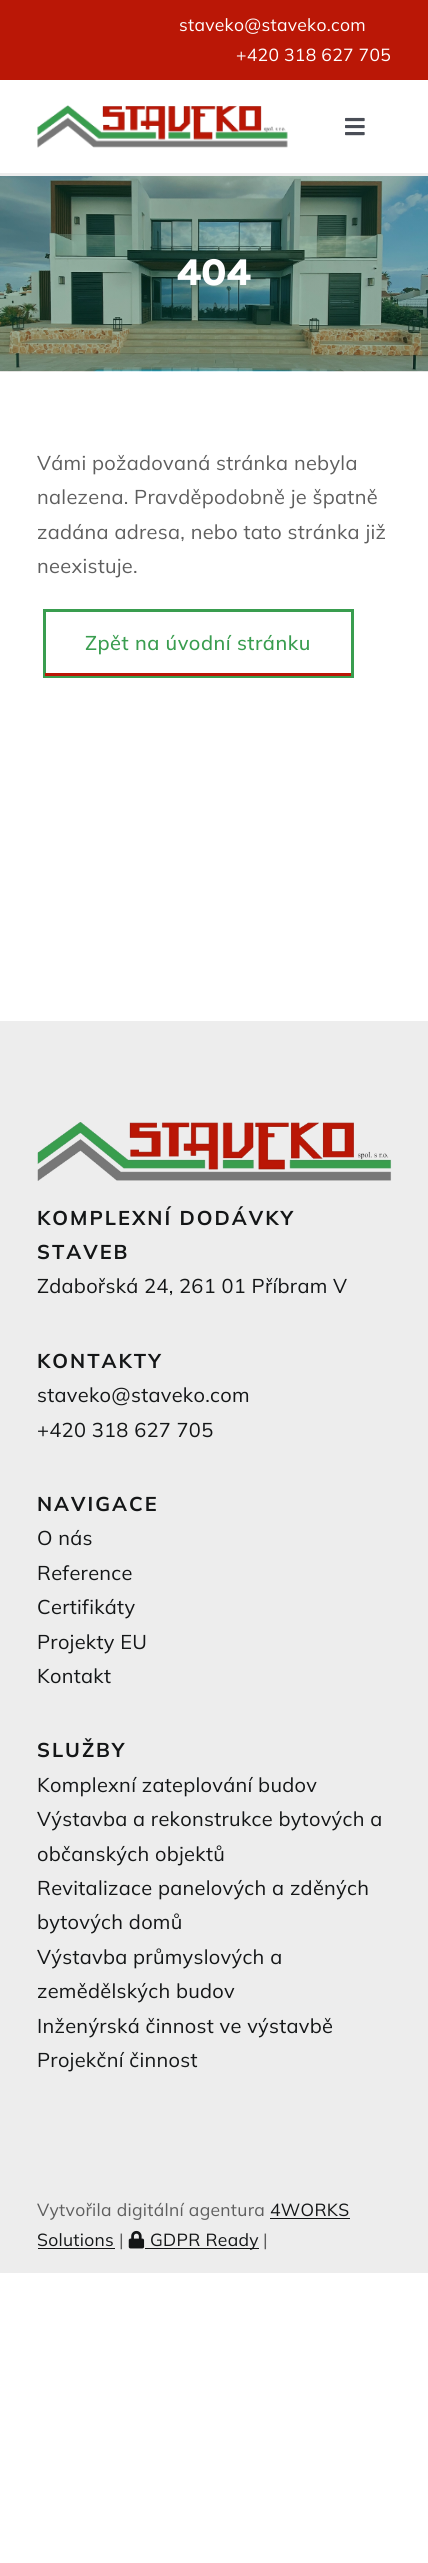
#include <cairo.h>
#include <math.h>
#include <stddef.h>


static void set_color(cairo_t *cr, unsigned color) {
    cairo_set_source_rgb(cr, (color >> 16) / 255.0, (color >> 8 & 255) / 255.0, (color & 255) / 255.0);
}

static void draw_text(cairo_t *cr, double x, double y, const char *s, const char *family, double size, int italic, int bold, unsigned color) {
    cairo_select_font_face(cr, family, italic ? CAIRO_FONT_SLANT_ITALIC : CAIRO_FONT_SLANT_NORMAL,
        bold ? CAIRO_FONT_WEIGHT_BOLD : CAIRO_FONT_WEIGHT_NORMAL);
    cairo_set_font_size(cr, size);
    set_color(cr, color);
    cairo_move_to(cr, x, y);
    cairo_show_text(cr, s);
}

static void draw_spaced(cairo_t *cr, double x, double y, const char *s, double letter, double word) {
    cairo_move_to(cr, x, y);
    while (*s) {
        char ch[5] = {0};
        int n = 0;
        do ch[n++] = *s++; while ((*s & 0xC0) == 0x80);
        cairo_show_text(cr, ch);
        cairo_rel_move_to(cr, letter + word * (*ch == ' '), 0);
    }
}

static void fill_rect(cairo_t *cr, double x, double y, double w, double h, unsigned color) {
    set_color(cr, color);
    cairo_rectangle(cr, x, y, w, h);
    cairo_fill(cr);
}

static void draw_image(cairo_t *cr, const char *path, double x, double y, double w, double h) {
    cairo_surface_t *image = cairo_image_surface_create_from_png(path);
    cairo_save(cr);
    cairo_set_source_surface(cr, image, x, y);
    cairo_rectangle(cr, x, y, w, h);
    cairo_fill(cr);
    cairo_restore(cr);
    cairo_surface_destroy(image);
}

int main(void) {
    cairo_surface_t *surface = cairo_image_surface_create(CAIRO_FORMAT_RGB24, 428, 2563);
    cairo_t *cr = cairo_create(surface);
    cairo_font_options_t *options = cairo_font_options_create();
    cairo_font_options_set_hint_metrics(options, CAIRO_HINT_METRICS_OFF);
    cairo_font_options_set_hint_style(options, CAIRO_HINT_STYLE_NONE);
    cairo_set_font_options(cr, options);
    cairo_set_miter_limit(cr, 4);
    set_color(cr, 0xFFFFFF);
    cairo_paint(cr);
    fill_rect(cr, 0, 0, 428, 80, 0xBA1706);
    cairo_select_font_face(cr, "Mulish", CAIRO_FONT_SLANT_NORMAL, CAIRO_FONT_WEIGHT_NORMAL);
    cairo_set_font_size(cr, 17.5);
    set_color(cr, 0xFFFFFF);
    draw_spaced(cr, 179, 31, "staveko@staveko.com", 0.3, 0);
    draw_spaced(cr, 236, 61, "+420 318 627 705", 0.3, 0);
    fill_rect(cr, 0, 173, 428, 3, 0xEDEDED);
    draw_image(cr, "assets/img1.png", 37, 105, 251, 43);
    draw_image(cr, "assets/img2.png", 345, 117, 20, 19);
    draw_image(cr, "assets/img3.png", 0, 176, 428, 196);
    draw_text(cr, 177, 285, "404", "Karla ExtraBold", 38, 0, 0, 0xFFFFFF);
    cairo_select_font_face(cr, "Mulish", CAIRO_FONT_SLANT_NORMAL, CAIRO_FONT_WEIGHT_NORMAL);
    cairo_set_font_size(cr, 20);
    set_color(cr, 0x5E5E5E);
    draw_spaced(cr, 37, 470, "Vámi požadovaná stránka nebyla", 0.3, 0);
    draw_spaced(cr, 37, 504, "nalezena. Pravděpodobně je špatně", 0.3, 0);
    draw_spaced(cr, 37, 539, "zadána adresa, nebo tato stránka již", 0.3, 0);
    draw_spaced(cr, 37, 573, "neexistuje.", 0.3, 0);
    cairo_rectangle(cr, 44.5, 610.5, 308, 66);
    set_color(cr, 0x399D4F);
    cairo_set_line_width(cr, 3);
    cairo_stroke(cr);
    cairo_select_font_face(cr, "Mulish Medium", CAIRO_FONT_SLANT_NORMAL, CAIRO_FONT_WEIGHT_NORMAL);
    draw_spaced(cr, 85, 650, "Zpět na úvodní stránku", 0.5, 0);
    fill_rect(cr, 45, 673, 306, 3, 0xBA1706);
    fill_rect(cr, 0, 1021, 428, 1252, 0xEDEDED);
    draw_image(cr, "assets/img4.png", 37, 1122, 355, 59);
    cairo_select_font_face(cr, "Mulish", CAIRO_FONT_SLANT_NORMAL, CAIRO_FONT_WEIGHT_BOLD);
    set_color(cr, 0x141617);
    draw_spaced(cr, 37, 1225, "KOMPLEXNÍ DODÁVKY", 2, 0);
    draw_spaced(cr, 37, 1259, "STAVEB", 2, 0);
    cairo_select_font_face(cr, "Mulish", CAIRO_FONT_SLANT_NORMAL, CAIRO_FONT_WEIGHT_NORMAL);
    draw_spaced(cr, 37, 1293, "Zdabořská 24, 261 01 Příbram V", 0.3, 0);
    cairo_select_font_face(cr, "Mulish", CAIRO_FONT_SLANT_NORMAL, CAIRO_FONT_WEIGHT_BOLD);
    draw_spaced(cr, 37, 1368, "KONTAKTY", 2, 0);
    cairo_select_font_face(cr, "Mulish", CAIRO_FONT_SLANT_NORMAL, CAIRO_FONT_WEIGHT_NORMAL);
    draw_spaced(cr, 37, 1402, "staveko@staveko.com", 0.3, 0);
    draw_spaced(cr, 37, 1437, "+420 318 627 705", 0.3, 0);
    cairo_select_font_face(cr, "Mulish", CAIRO_FONT_SLANT_NORMAL, CAIRO_FONT_WEIGHT_BOLD);
    draw_spaced(cr, 37, 1511, "NAVIGACE", 2, 0);
    cairo_select_font_face(cr, "Mulish", CAIRO_FONT_SLANT_NORMAL, CAIRO_FONT_WEIGHT_NORMAL);
    draw_spaced(cr, 37, 1545, "O nás", 0.3, 0);
    draw_spaced(cr, 37, 1580, "Reference", 0.3, 0);
    draw_spaced(cr, 37, 1614, "Certifikáty", 0.3, 0);
    draw_spaced(cr, 37, 1649, "Projekty EU", 0.3, 0);
    draw_spaced(cr, 37, 1683, "Kontakt", 0.3, 0);
    cairo_select_font_face(cr, "Mulish", CAIRO_FONT_SLANT_NORMAL, CAIRO_FONT_WEIGHT_BOLD);
    draw_spaced(cr, 37, 1757, "SLUŽBY", 2, 0);
    cairo_select_font_face(cr, "Mulish", CAIRO_FONT_SLANT_NORMAL, CAIRO_FONT_WEIGHT_NORMAL);
    draw_spaced(cr, 37, 1792, "Komplexní zateplování budov", 0.3, 0);
    draw_spaced(cr, 37, 1826, "Výstavba a rekonstrukce bytových a", 0.3, 0);
    draw_spaced(cr, 37, 1861, "občanských objektů", 0.3, 0);
    draw_spaced(cr, 37, 1895, "Revitalizace panelových a zděných", 0.3, 0);
    draw_spaced(cr, 37, 1929, "bytových domů", 0.3, 0);
    draw_spaced(cr, 37, 1964, "Výstavba průmyslových a", 0.3, 0);
    draw_spaced(cr, 37, 1998, "zemědělských budov", 0.3, 0);
    draw_spaced(cr, 37, 2033, "Inženýrská činnost ve výstavbě", 0.3, 0);
    draw_spaced(cr, 37, 2067, "Projekční činnost", 0.3, 0);
    cairo_set_font_size(cr, 17.5);
    set_color(cr, 0x5E5E5E);
    draw_spaced(cr, 37, 2216, "Vytvořila digitální agentura", 0.3, 0);
    set_color(cr, 0x141617);
    draw_spaced(cr, 270, 2216, "4WORKS", 0.3, 0);
    fill_rect(cr, 270, 2218, 80, 1, 0x141617);
    draw_spaced(cr, 37, 2246, "Solutions", 0.3, 0);
    fill_rect(cr, 38, 2248, 77, 1, 0x141617);
    set_color(cr, 0x5E5E5E);
    draw_spaced(cr, 119, 2246, "|", 0.3, 0);
    draw_image(cr, "assets/img5.png", 128, 2230, 17, 19);
    fill_rect(cr, 145, 2248, 114, 1, 0x141617);
    draw_spaced(cr, 150, 2246, "GDPR Ready", 0.3, 0);
    set_color(cr, 0x5E5E5E);
    draw_spaced(cr, 263, 2246, "|", 0.3, 0);
    cairo_surface_write_to_png(surface, "output.png");
    cairo_font_options_destroy(options);
    cairo_destroy(cr);
    cairo_surface_destroy(surface);
    return 0;
}
